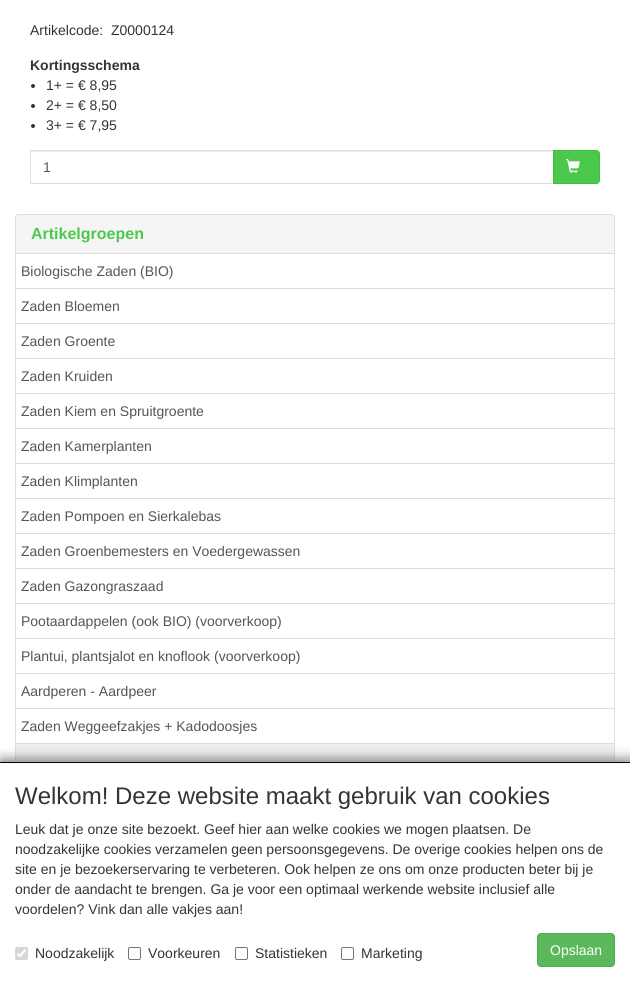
#include <cairo.h>
#include <math.h>
#include <stddef.h>


static void set_color(cairo_t *cr, unsigned color) {
    cairo_set_source_rgb(cr, (color >> 16) / 255.0, (color >> 8 & 255) / 255.0, (color & 255) / 255.0);
}

static void draw_text(cairo_t *cr, double x, double y, const char *s, const char *family, double size, int italic, int bold, unsigned color) {
    cairo_select_font_face(cr, family, italic ? CAIRO_FONT_SLANT_ITALIC : CAIRO_FONT_SLANT_NORMAL,
        bold ? CAIRO_FONT_WEIGHT_BOLD : CAIRO_FONT_WEIGHT_NORMAL);
    cairo_set_font_size(cr, size);
    set_color(cr, color);
    cairo_move_to(cr, x, y);
    cairo_show_text(cr, s);
}

static void fill_rect(cairo_t *cr, double x, double y, double w, double h, unsigned color) {
    set_color(cr, color);
    cairo_rectangle(cr, x, y, w, h);
    cairo_fill(cr);
}

static void rounded_rect(cairo_t *cr, double x, double y, double w, double h, double r) {
    cairo_new_sub_path(cr);
    cairo_arc(cr, x + w - r, y + h - r, r, 0, M_PI / 2);
    cairo_arc(cr, x + r, y + h - r, r, M_PI / 2, M_PI);
    cairo_arc(cr, x + r, y + r, r, M_PI, 1.5 * M_PI);
    cairo_arc(cr, x + w - r, y + r, r, 1.5 * M_PI, 2 * M_PI);
    cairo_close_path(cr);
}

static void draw_shadow(cairo_t *cr, double x, double y, double w, double h, double r, double blur, double alpha) {
    cairo_push_group_with_content(cr, CAIRO_CONTENT_ALPHA);
    cairo_set_operator(cr, CAIRO_OPERATOR_SOURCE);
    for (int i = 15; i >= -15 && fmin(w, h) + blur * i / 3 > 0; i -= 2) {
        double e = blur * i / 6;
        cairo_set_source_rgba(cr, 0, 0, 0, alpha * erfc((i - 1) / 8.5) / 2);
        rounded_rect(cr, x - e, y - e, w + 2 * e, h + 2 * e, fmax(0, fmin(r + e + blur * .6, fmin(w, h) / 2 + e)));
        cairo_fill(cr);
    }
    cairo_pattern_t *soft = cairo_pop_group(cr);
    cairo_mask(cr, soft);
    cairo_pattern_destroy(soft);
}

static void draw_image(cairo_t *cr, const char *path, double x, double y, double w, double h) {
    cairo_surface_t *image = cairo_image_surface_create_from_png(path);
    cairo_save(cr);
    cairo_set_source_surface(cr, image, x, y);
    cairo_rectangle(cr, x, y, w, h);
    cairo_fill(cr);
    cairo_restore(cr);
    cairo_surface_destroy(image);
}

int main(void) {
    cairo_surface_t *surface = cairo_image_surface_create(CAIRO_FORMAT_RGB24, 630, 981);
    cairo_t *cr = cairo_create(surface);
    cairo_font_options_t *options = cairo_font_options_create();
    cairo_font_options_set_hint_metrics(options, CAIRO_HINT_METRICS_OFF);
    cairo_font_options_set_hint_style(options, CAIRO_HINT_STYLE_NONE);
    cairo_set_font_options(cr, options);
    cairo_set_miter_limit(cr, 4);
    set_color(cr, 0xFFFFFF);
    cairo_paint(cr);
    draw_text(cr, 30, 35, "Artikelcode:", "Liberation Sans", 14, 0, 0, 0x343434);
    draw_text(cr, 111, 35, "Z0000124", "Liberation Sans", 14, 0, 0, 0x343434);
    draw_text(cr, 30, 70, "Kortingsschema", "Liberation Sans", 14, 0, 1, 0x343434);
    cairo_new_path(cr);
    cairo_arc(cr, 33, 86, 2, 0, 2 * M_PI);
    cairo_fill(cr);
    draw_text(cr, 46, 90, "1+ = € 8,95", "Liberation Sans", 14, 0, 0, 0x343434);
    cairo_new_path(cr);
    cairo_arc(cr, 33, 106, 2, 0, 2 * M_PI);
    cairo_fill(cr);
    draw_text(cr, 46, 110, "2+ = € 8,50", "Liberation Sans", 14, 0, 0, 0x343434);
    cairo_new_path(cr);
    cairo_arc(cr, 33, 126, 2, 0, 2 * M_PI);
    cairo_fill(cr);
    draw_text(cr, 46, 130, "3+ = € 7,95", "Liberation Sans", 14, 0, 0, 0x343434);
    fill_rect(cr, 31, 151, 522, 1, 0xECECEC);
    cairo_rectangle(cr, 30.5, 150.5, 523, 33);
    set_color(cr, 0xDDDDDD);
    cairo_set_line_width(cr, 1);
    cairo_stroke(cr);
    draw_text(cr, 43, 172, "1", "Liberation Sans", 14, 0, 0, 0x555555);
    set_color(cr, 0x4CC94C);
    cairo_new_path(cr);
    cairo_move_to(cr, 553.5, 150.5);
    cairo_line_to(cr, 596, 150.5);
    cairo_curve_to(cr, 598, 150.5, 599.5, 152, 599.5, 154);
    cairo_line_to(cr, 599.5, 180);
    cairo_curve_to(cr, 599.5, 182, 598, 183.5, 596, 183.5);
    cairo_line_to(cr, 553.5, 183.5);
    cairo_close_path(cr);
    cairo_fill_preserve(cr);
    set_color(cr, 0x3AC13A);
    cairo_stroke(cr);
    draw_image(cr, "assets/img1.png", 566, 159, 14, 14);
    rounded_rect(cr, 15.5, 214.5, 599, 600, 3.5);
    set_color(cr, 0xDDDDDD);
    cairo_stroke(cr);
    set_color(cr, 0xF5F5F5);
    cairo_new_path(cr);
    cairo_move_to(cr, 19, 215);
    cairo_line_to(cr, 611, 215);
    cairo_curve_to(cr, 612.5, 215, 614, 216.5, 614, 218);
    cairo_line_to(cr, 614, 254);
    cairo_line_to(cr, 16, 254);
    cairo_line_to(cr, 16, 218);
    cairo_curve_to(cr, 16, 216.5, 17.5, 215, 19, 215);
    cairo_close_path(cr);
    cairo_fill(cr);
    fill_rect(cr, 16, 253, 598, 1, 0xDDDDDD);
    draw_text(cr, 31, 239, "Artikelgroepen", "Liberation Sans", 16, 0, 1, 0x4CC94C);
    draw_text(cr, 21, 276, "Biologische Zaden (BIO)", "Liberation Sans", 14, 0, 0, 0x555555);
    fill_rect(cr, 16, 288, 598, 1, 0xDDDDDD);
    draw_text(cr, 21, 311, "Zaden Bloemen", "Liberation Sans", 14, 0, 0, 0x555555);
    fill_rect(cr, 16, 323, 598, 1, 0xDDDDDD);
    draw_text(cr, 21, 346, "Zaden Groente", "Liberation Sans", 14, 0, 0, 0x555555);
    fill_rect(cr, 16, 358, 598, 1, 0xDDDDDD);
    draw_text(cr, 21, 381, "Zaden Kruiden", "Liberation Sans", 14, 0, 0, 0x555555);
    fill_rect(cr, 16, 393, 598, 1, 0xDDDDDD);
    draw_text(cr, 21, 416, "Zaden Kiem en Spruitgroente", "Liberation Sans", 14, 0, 0, 0x555555);
    fill_rect(cr, 16, 428, 598, 1, 0xDDDDDD);
    draw_text(cr, 21, 451, "Zaden Kamerplanten", "Liberation Sans", 14, 0, 0, 0x555555);
    fill_rect(cr, 16, 463, 598, 1, 0xDDDDDD);
    draw_text(cr, 21, 486, "Zaden Klimplanten", "Liberation Sans", 14, 0, 0, 0x555555);
    fill_rect(cr, 16, 498, 598, 1, 0xDDDDDD);
    draw_text(cr, 21, 521, "Zaden Pompoen en Sierkalebas", "Liberation Sans", 14, 0, 0, 0x555555);
    fill_rect(cr, 16, 533, 598, 1, 0xDDDDDD);
    draw_text(cr, 21, 556, "Zaden Groenbemesters en Voedergewassen", "Liberation Sans", 14, 0, 0, 0x555555);
    fill_rect(cr, 16, 568, 598, 1, 0xDDDDDD);
    draw_text(cr, 21, 591, "Zaden Gazongraszaad", "Liberation Sans", 14, 0, 0, 0x555555);
    fill_rect(cr, 16, 603, 598, 1, 0xDDDDDD);
    draw_text(cr, 21, 626, "Pootaardappelen (ook BIO) (voorverkoop)", "Liberation Sans", 14, 0, 0, 0x555555);
    fill_rect(cr, 16, 638, 598, 1, 0xDDDDDD);
    draw_text(cr, 21, 661, "Plantui, plantsjalot en knoflook (voorverkoop)", "Liberation Sans", 14, 0, 0, 0x555555);
    fill_rect(cr, 16, 673, 598, 1, 0xDDDDDD);
    draw_text(cr, 21, 696, "Aardperen - Aardpeer", "Liberation Sans", 14, 0, 0, 0x555555);
    fill_rect(cr, 16, 708, 598, 1, 0xDDDDDD);
    draw_text(cr, 21, 731, "Zaden Weggeefzakjes + Kadodoosjes", "Liberation Sans", 14, 0, 0, 0x555555);
    fill_rect(cr, 16, 744, 598, 18, 0xEEEEEE);
    fill_rect(cr, 16, 743, 598, 1, 0xDDDDDD);
    set_color(cr, 0x808080);
    draw_shadow(cr, 1, 759, 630, 219, 0, 6, 1);
    fill_rect(cr, 0, 763, 630, 218, 0xFFFFFF);
    fill_rect(cr, 0, 762, 630, 1, 0x000000);
    draw_text(cr, 15, 804, "Welkom! Deze website maakt gebruik van cookies", "Liberation Sans", 24, 0, 0, 0x343434);
    draw_text(cr, 15, 834, "Leuk dat je onze site bezoekt. Geef hier aan welke cookies we mogen plaatsen. De", "Liberation Sans", 14, 0, 0, 0x343434);
    draw_text(cr, 15, 854, "noodzakelijke cookies verzamelen geen persoonsgegevens. De overige cookies helpen ons de", "Liberation Sans", 14, 0, 0, 0x343434);
    draw_text(cr, 15, 874, "site en je bezoekerservaring te verbeteren. Ook helpen ze ons om onze producten beter bij je", "Liberation Sans", 14, 0, 0, 0x343434);
    draw_text(cr, 15, 894, "onder de aandacht te brengen. Ga je voor een optimaal werkende website inclusief alle", "Liberation Sans", 14, 0, 0, 0x343434);
    draw_text(cr, 15, 914, "voordelen? Vink dan alle vakjes aan!", "Liberation Sans", 14, 0, 0, 0x343434);
    set_color(cr, 0xD6D6D6);
    rounded_rect(cr, 15, 947, 13, 13, 2);
    cairo_fill(cr);
    cairo_new_path(cr);
    cairo_move_to(cr, 17.5, 953.5);
    cairo_line_to(cr, 20, 956);
    cairo_line_to(cr, 25.5, 949.5);
    set_color(cr, 0xFFFFFF);
    cairo_set_line_width(cr, 2.1);
    cairo_stroke(cr);
    draw_text(cr, 35, 958, "Noodzakelijk", "Liberation Sans", 14, 0, 0, 0x343434);
    rounded_rect(cr, 128.5, 947.5, 12, 12, 1.5);
    set_color(cr, 0x767676);
    cairo_set_line_width(cr, 1);
    cairo_stroke(cr);
    draw_text(cr, 148, 958, "Voorkeuren", "Liberation Sans", 14, 0, 0, 0x343434);
    rounded_rect(cr, 235.5, 947.5, 12, 12, 1.5);
    set_color(cr, 0x767676);
    cairo_stroke(cr);
    draw_text(cr, 255, 958, "Statistieken", "Liberation Sans", 14, 0, 0, 0x343434);
    rounded_rect(cr, 341.5, 947.5, 12, 12, 1.5);
    set_color(cr, 0x767676);
    cairo_stroke(cr);
    draw_text(cr, 361, 958, "Marketing", "Liberation Sans", 14, 0, 0, 0x343434);
    set_color(cr, 0x5CB85C);
    rounded_rect(cr, 537.5, 933.5, 77, 33, 3.5);
    cairo_fill_preserve(cr);
    set_color(cr, 0x4CAE4C);
    cairo_stroke(cr);
    draw_text(cr, 550, 955, "Opslaan", "Liberation Sans", 14, 0, 0, 0xFEFEFE);
    cairo_surface_write_to_png(surface, "output.png");
    cairo_font_options_destroy(options);
    cairo_destroy(cr);
    cairo_surface_destroy(surface);
    return 0;
}
